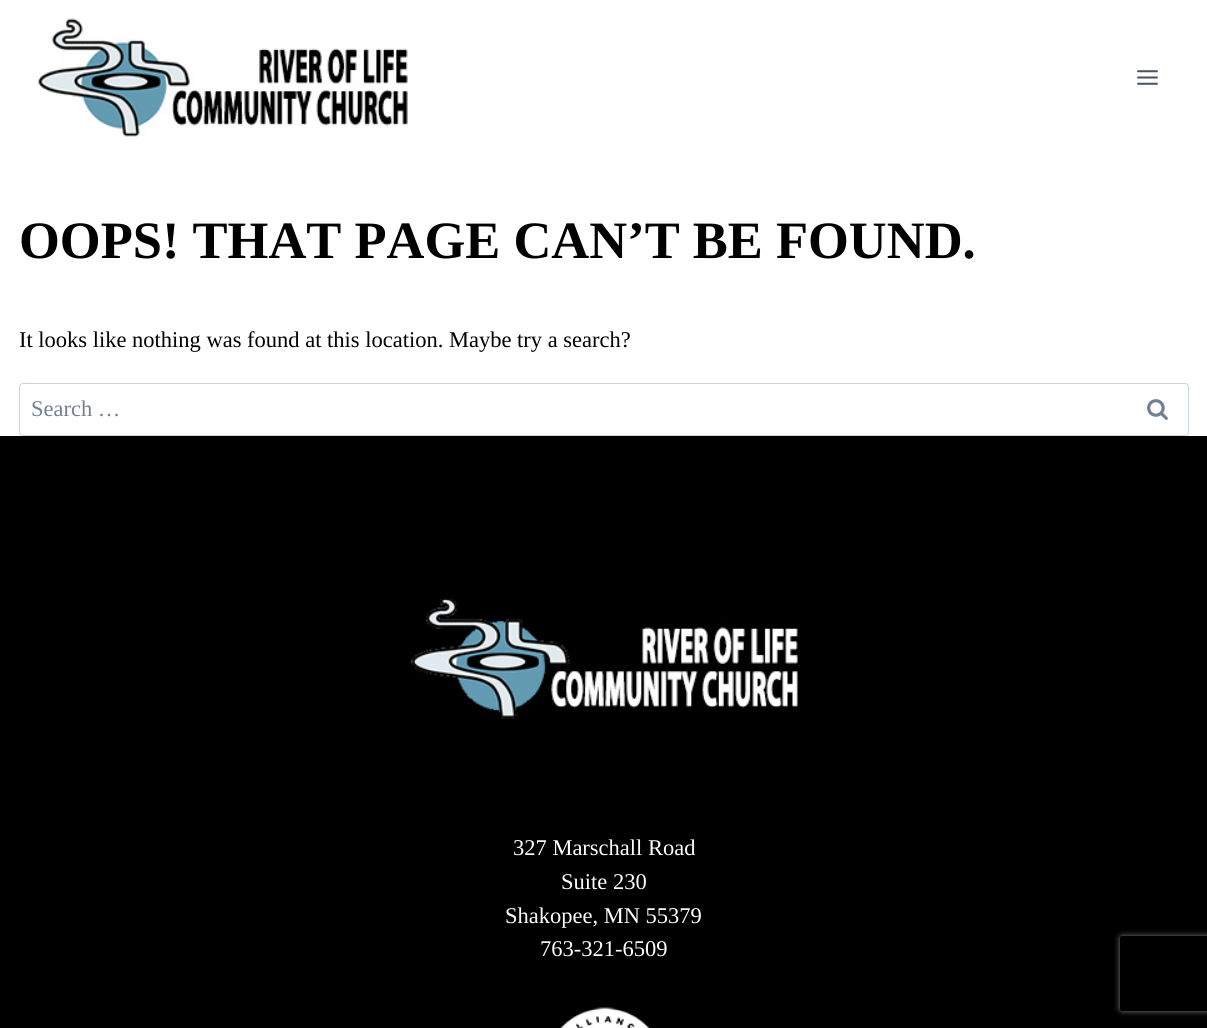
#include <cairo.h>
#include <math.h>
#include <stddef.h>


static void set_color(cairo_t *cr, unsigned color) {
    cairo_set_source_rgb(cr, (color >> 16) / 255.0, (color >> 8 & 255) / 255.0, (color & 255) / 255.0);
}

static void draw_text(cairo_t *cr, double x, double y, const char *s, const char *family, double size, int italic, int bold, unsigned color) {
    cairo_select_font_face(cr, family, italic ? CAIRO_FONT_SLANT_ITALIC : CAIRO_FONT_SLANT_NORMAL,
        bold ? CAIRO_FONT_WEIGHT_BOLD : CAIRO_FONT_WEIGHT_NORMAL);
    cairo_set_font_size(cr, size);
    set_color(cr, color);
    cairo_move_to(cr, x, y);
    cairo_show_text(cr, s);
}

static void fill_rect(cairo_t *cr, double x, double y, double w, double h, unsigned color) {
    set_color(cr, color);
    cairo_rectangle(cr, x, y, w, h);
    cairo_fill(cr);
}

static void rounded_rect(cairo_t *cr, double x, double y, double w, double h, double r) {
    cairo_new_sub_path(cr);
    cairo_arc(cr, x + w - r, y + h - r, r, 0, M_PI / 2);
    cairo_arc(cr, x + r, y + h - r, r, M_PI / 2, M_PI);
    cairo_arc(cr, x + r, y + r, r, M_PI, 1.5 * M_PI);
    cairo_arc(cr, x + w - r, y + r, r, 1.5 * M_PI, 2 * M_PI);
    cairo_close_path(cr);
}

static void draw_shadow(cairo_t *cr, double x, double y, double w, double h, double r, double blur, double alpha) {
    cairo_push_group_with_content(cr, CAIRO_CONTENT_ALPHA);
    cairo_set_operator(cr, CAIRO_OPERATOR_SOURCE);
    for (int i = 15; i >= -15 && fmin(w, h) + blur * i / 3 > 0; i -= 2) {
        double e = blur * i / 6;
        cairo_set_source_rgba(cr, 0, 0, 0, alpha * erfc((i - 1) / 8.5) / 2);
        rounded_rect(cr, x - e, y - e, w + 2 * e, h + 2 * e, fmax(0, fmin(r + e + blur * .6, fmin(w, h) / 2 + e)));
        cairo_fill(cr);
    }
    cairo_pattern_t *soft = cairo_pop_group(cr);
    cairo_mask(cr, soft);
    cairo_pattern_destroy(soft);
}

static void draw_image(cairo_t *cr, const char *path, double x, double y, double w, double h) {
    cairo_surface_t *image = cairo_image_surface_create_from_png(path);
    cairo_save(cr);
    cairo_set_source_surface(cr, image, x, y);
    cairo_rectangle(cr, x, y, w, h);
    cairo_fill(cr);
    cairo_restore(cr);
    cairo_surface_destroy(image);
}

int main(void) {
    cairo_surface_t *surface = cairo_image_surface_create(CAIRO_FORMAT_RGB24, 1207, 1028);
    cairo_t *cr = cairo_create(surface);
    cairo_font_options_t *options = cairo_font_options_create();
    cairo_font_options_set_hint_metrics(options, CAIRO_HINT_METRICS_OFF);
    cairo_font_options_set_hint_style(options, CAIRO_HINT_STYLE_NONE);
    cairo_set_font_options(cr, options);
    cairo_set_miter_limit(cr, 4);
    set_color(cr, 0xFFFFFF);
    cairo_paint(cr);
    draw_image(cr, "assets/img1.png", 37, 18, 371, 119);
    draw_image(cr, "assets/img2.png", 1137, 70, 21, 15);
    draw_text(cr, 19, 258, "OOPS! THAT PAGE CAN’T BE FOUND.", "Liberation Serif", 52.5, 0, 1, 0x000000);
    draw_text(cr, 19, 347, "It looks like nothing was found at this location. Maybe try a search?", "Liberation Serif", 22.5, 0, 0, 0x000000);
    rounded_rect(cr, 19.5, 383.5, 1169, 52, 3.5);
    set_color(cr, 0xCBD5E0);
    cairo_set_line_width(cr, 1);
    cairo_stroke(cr);
    draw_text(cr, 31, 416, "Search …", "Liberation Serif", 22.5, 0, 0, 0x718096);
    draw_image(cr, "assets/img3.png", 1147, 399, 21, 21);
    fill_rect(cr, 0, 436, 1207, 592, 0x000000);
    draw_image(cr, "assets/img4.png", 410, 598, 388, 121);
    draw_text(cr, 513, 855, "327 Marschall Road", "Liberation Serif", 22.5, 0, 0, 0xFFFFFF);
    draw_text(cr, 561, 889, "Suite 230", "Liberation Serif", 22.5, 0, 0, 0xFFFFFF);
    draw_text(cr, 505, 923, "Shakopee, MN 55379", "Liberation Serif", 22.5, 0, 0, 0xFFFFFF);
    draw_text(cr, 540, 956, "763-321-6509", "Liberation Serif", 22.5, 0, 0, 0xFFFFFF);
    draw_image(cr, "assets/img5.png", 560, 1007, 90, 21);
    cairo_save(cr);
    cairo_set_fill_rule(cr, CAIRO_FILL_RULE_EVEN_ODD);
    cairo_new_path(cr);
    cairo_move_to(cr, 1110, 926);
    cairo_line_to(cr, 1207, 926);
    cairo_line_to(cr, 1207, 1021);
    cairo_line_to(cr, 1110, 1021);
    cairo_close_path(cr);
    cairo_move_to(cr, 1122.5, 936);
    cairo_line_to(cr, 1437.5, 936);
    cairo_curve_to(cr, 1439, 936, 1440, 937, 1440, 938.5);
    cairo_line_to(cr, 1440, 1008.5);
    cairo_curve_to(cr, 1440, 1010, 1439, 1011, 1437.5, 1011);
    cairo_line_to(cr, 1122.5, 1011);
    cairo_curve_to(cr, 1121, 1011, 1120, 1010, 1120, 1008.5);
    cairo_line_to(cr, 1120, 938.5);
    cairo_curve_to(cr, 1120, 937, 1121, 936, 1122.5, 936);
    cairo_close_path(cr);
    cairo_clip(cr);
    set_color(cr, 0x808080);
    draw_shadow(cr, 1120, 936, 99, 75, 2.5, 3, 1);
    cairo_restore(cr);
    cairo_surface_write_to_png(surface, "output.png");
    cairo_font_options_destroy(options);
    cairo_destroy(cr);
    cairo_surface_destroy(surface);
    return 0;
}
